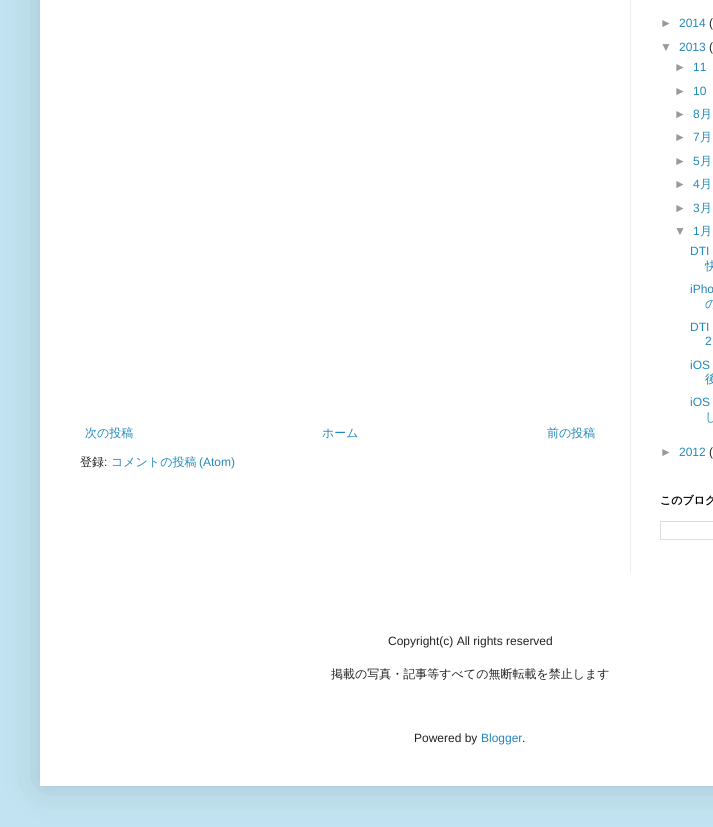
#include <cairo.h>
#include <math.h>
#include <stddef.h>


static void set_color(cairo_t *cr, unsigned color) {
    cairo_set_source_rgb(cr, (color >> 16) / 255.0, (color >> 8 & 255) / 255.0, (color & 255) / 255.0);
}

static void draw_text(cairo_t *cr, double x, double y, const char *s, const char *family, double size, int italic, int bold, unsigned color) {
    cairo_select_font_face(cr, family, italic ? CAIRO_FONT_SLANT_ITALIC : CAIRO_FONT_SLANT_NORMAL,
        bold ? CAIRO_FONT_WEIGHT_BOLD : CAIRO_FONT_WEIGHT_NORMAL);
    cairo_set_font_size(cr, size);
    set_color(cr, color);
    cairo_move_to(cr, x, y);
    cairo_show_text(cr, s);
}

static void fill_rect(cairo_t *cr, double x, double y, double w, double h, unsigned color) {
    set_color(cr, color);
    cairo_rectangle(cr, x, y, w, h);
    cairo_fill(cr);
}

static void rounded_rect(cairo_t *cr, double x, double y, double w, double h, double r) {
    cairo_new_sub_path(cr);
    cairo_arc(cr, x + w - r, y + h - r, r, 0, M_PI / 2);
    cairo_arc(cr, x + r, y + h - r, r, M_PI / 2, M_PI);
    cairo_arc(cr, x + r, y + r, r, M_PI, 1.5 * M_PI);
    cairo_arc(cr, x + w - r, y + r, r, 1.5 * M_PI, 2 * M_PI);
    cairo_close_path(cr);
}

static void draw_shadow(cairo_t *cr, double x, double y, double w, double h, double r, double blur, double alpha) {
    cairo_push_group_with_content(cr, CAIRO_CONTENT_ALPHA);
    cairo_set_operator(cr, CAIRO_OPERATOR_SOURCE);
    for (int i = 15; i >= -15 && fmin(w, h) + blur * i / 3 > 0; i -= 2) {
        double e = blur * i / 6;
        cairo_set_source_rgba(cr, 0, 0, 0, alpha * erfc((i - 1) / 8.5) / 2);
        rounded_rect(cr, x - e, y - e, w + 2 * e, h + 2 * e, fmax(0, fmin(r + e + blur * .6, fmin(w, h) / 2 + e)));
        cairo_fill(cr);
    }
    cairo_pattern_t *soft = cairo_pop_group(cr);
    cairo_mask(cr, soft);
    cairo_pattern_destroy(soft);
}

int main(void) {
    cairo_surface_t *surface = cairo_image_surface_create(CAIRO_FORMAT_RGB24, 713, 827);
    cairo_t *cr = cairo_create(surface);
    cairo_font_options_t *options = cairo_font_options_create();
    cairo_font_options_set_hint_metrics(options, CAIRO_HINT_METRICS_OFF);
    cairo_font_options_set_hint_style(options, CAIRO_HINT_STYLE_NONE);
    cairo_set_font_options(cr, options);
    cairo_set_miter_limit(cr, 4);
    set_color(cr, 0xC2E4F2);
    cairo_paint(cr);
    set_color(cr, 0x000000);
    draw_shadow(cr, 40, -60, 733, 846, 0, 20, 0.15);
    fill_rect(cr, 40, 0, 673, 786, 0xFFFFFF);
    fill_rect(cr, 630, 0, 1, 573, 0xEEEEEE);
    draw_text(cr, 85, 437, "次の投稿", "WenQuanYi Zen Hei Medium", 12, 0, 0, 0x2288BB);
    draw_text(cr, 322, 437, "ホーム", "WenQuanYi Zen Hei Medium", 12, 0, 0, 0x2288BB);
    draw_text(cr, 547, 437, "前の投稿", "WenQuanYi Zen Hei Medium", 12, 0, 0, 0x2288BB);
    draw_text(cr, 80, 466, "登録", "WenQuanYi Zen Hei Medium", 12, 0, 0, 0x222222);
    draw_text(cr, 104, 466, ":", "Liberation Sans", 12, 0, 0, 0x222222);
    draw_text(cr, 111, 466, "コメントの投稿", "WenQuanYi Zen Hei Medium", 12, 0, 0, 0x2288BB);
    draw_text(cr, 199, 466, "(Atom)", "Liberation Sans", 12, 0, 0, 0x2288BB);
    draw_text(cr, 660, 27, "►", "Liberation Sans", 12, 0, 0, 0x999999);
    draw_text(cr, 679, 27, "2014", "Liberation Sans", 12, 0, 0, 0x2288BB);
    draw_text(cr, 709, 27, "(", "Liberation Sans", 12, 0, 0, 0x222222);
    draw_text(cr, 660, 51, "▼", "Liberation Sans", 12, 0, 0, 0x999999);
    draw_text(cr, 679, 51, "2013", "Liberation Sans", 12, 0, 0, 0x2288BB);
    draw_text(cr, 709, 51, "(", "Liberation Sans", 12, 0, 0, 0x222222);
    draw_text(cr, 674, 71, "►", "Liberation Sans", 12, 0, 0, 0x999999);
    draw_text(cr, 693, 71, "11", "Liberation Sans", 12, 0, 0, 0x2288BB);
    draw_text(cr, 674, 95, "►", "Liberation Sans", 12, 0, 0, 0x999999);
    draw_text(cr, 693, 95, "10", "Liberation Sans", 12, 0, 0, 0x2288BB);
    draw_text(cr, 674, 118, "►", "Liberation Sans", 12, 0, 0, 0x999999);
    draw_text(cr, 693, 118, "8", "Liberation Sans", 12, 0, 0, 0x2288BB);
    draw_text(cr, 700, 118, "月", "WenQuanYi Zen Hei Medium", 12, 0, 0, 0x2288BB);
    draw_text(cr, 674, 141, "►", "Liberation Sans", 12, 0, 0, 0x999999);
    draw_text(cr, 693, 141, "7", "Liberation Sans", 12, 0, 0, 0x2288BB);
    draw_text(cr, 700, 141, "月", "WenQuanYi Zen Hei Medium", 12, 0, 0, 0x2288BB);
    draw_text(cr, 674, 165, "►", "Liberation Sans", 12, 0, 0, 0x999999);
    draw_text(cr, 693, 165, "5", "Liberation Sans", 12, 0, 0, 0x2288BB);
    draw_text(cr, 700, 165, "月", "WenQuanYi Zen Hei Medium", 12, 0, 0, 0x2288BB);
    draw_text(cr, 674, 188, "►", "Liberation Sans", 12, 0, 0, 0x999999);
    draw_text(cr, 693, 188, "4", "Liberation Sans", 12, 0, 0, 0x2288BB);
    draw_text(cr, 700, 188, "月", "WenQuanYi Zen Hei Medium", 12, 0, 0, 0x2288BB);
    draw_text(cr, 674, 212, "►", "Liberation Sans", 12, 0, 0, 0x999999);
    draw_text(cr, 693, 212, "3", "Liberation Sans", 12, 0, 0, 0x2288BB);
    draw_text(cr, 700, 212, "月", "WenQuanYi Zen Hei Medium", 12, 0, 0, 0x2288BB);
    draw_text(cr, 674, 235, "▼", "Liberation Sans", 12, 0, 0, 0x999999);
    draw_text(cr, 693, 235, "1", "Liberation Sans", 12, 0, 0, 0x2288BB);
    draw_text(cr, 700, 235, "月", "WenQuanYi Zen Hei Medium", 12, 0, 0, 0x2288BB);
    draw_text(cr, 690, 255, "DTI", "Liberation Sans", 12, 0, 0, 0x2288BB);
    draw_text(cr, 705, 270, "快", "WenQuanYi Zen Hei Medium", 12, 0, 0, 0x2288BB);
    draw_text(cr, 690, 293, "iPho", "Liberation Sans", 12, 0, 0, 0x2288BB);
    draw_text(cr, 705, 308, "の", "WenQuanYi Zen Hei Medium", 12, 0, 0, 0x2288BB);
    draw_text(cr, 690, 331, "DTI", "Liberation Sans", 12, 0, 0, 0x2288BB);
    draw_text(cr, 705, 345, "2", "Liberation Sans", 12, 0, 0, 0x2288BB);
    draw_text(cr, 690, 369, "iOS", "Liberation Sans", 12, 0, 0, 0x2288BB);
    draw_text(cr, 705, 383, "後", "WenQuanYi Zen Hei Medium", 12, 0, 0, 0x2288BB);
    draw_text(cr, 690, 406, "iOS", "Liberation Sans", 12, 0, 0, 0x2288BB);
    draw_text(cr, 705, 421, "し", "WenQuanYi Zen Hei Medium", 12, 0, 0, 0x2288BB);
    draw_text(cr, 660, 456, "►", "Liberation Sans", 12, 0, 0, 0x999999);
    draw_text(cr, 679, 456, "2012", "Liberation Sans", 12, 0, 0, 0x2288BB);
    draw_text(cr, 709, 456, "(", "Liberation Sans", 12, 0, 0, 0x222222);
    draw_text(cr, 660, 504, "このブログ", "WenQuanYi Zen Hei", 11, 0, 1, 0x000000);
    cairo_rectangle(cr, 660.5, 521.5, 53, 18);
    set_color(cr, 0xDDDDDD);
    cairo_set_line_width(cr, 1);
    cairo_stroke(cr);
    draw_text(cr, 388, 645, "Copyright(c) All rights reserved", "Liberation Sans", 12, 0, 0, 0x222222);
    draw_text(cr, 331, 678, "掲載の写真・記事等すべての無断転載を禁止します", "WenQuanYi Zen Hei Medium", 12, 0, 0, 0x222222);
    draw_text(cr, 414, 742, "Powered by", "Liberation Sans", 12, 0, 0, 0x222222);
    draw_text(cr, 481, 742, "Blogger", "Liberation Sans", 12, 0, 0, 0x2288BB);
    draw_text(cr, 522, 742, ".", "Liberation Sans", 12, 0, 0, 0x222222);
    cairo_surface_write_to_png(surface, "output.png");
    cairo_font_options_destroy(options);
    cairo_destroy(cr);
    cairo_surface_destroy(surface);
    return 0;
}
